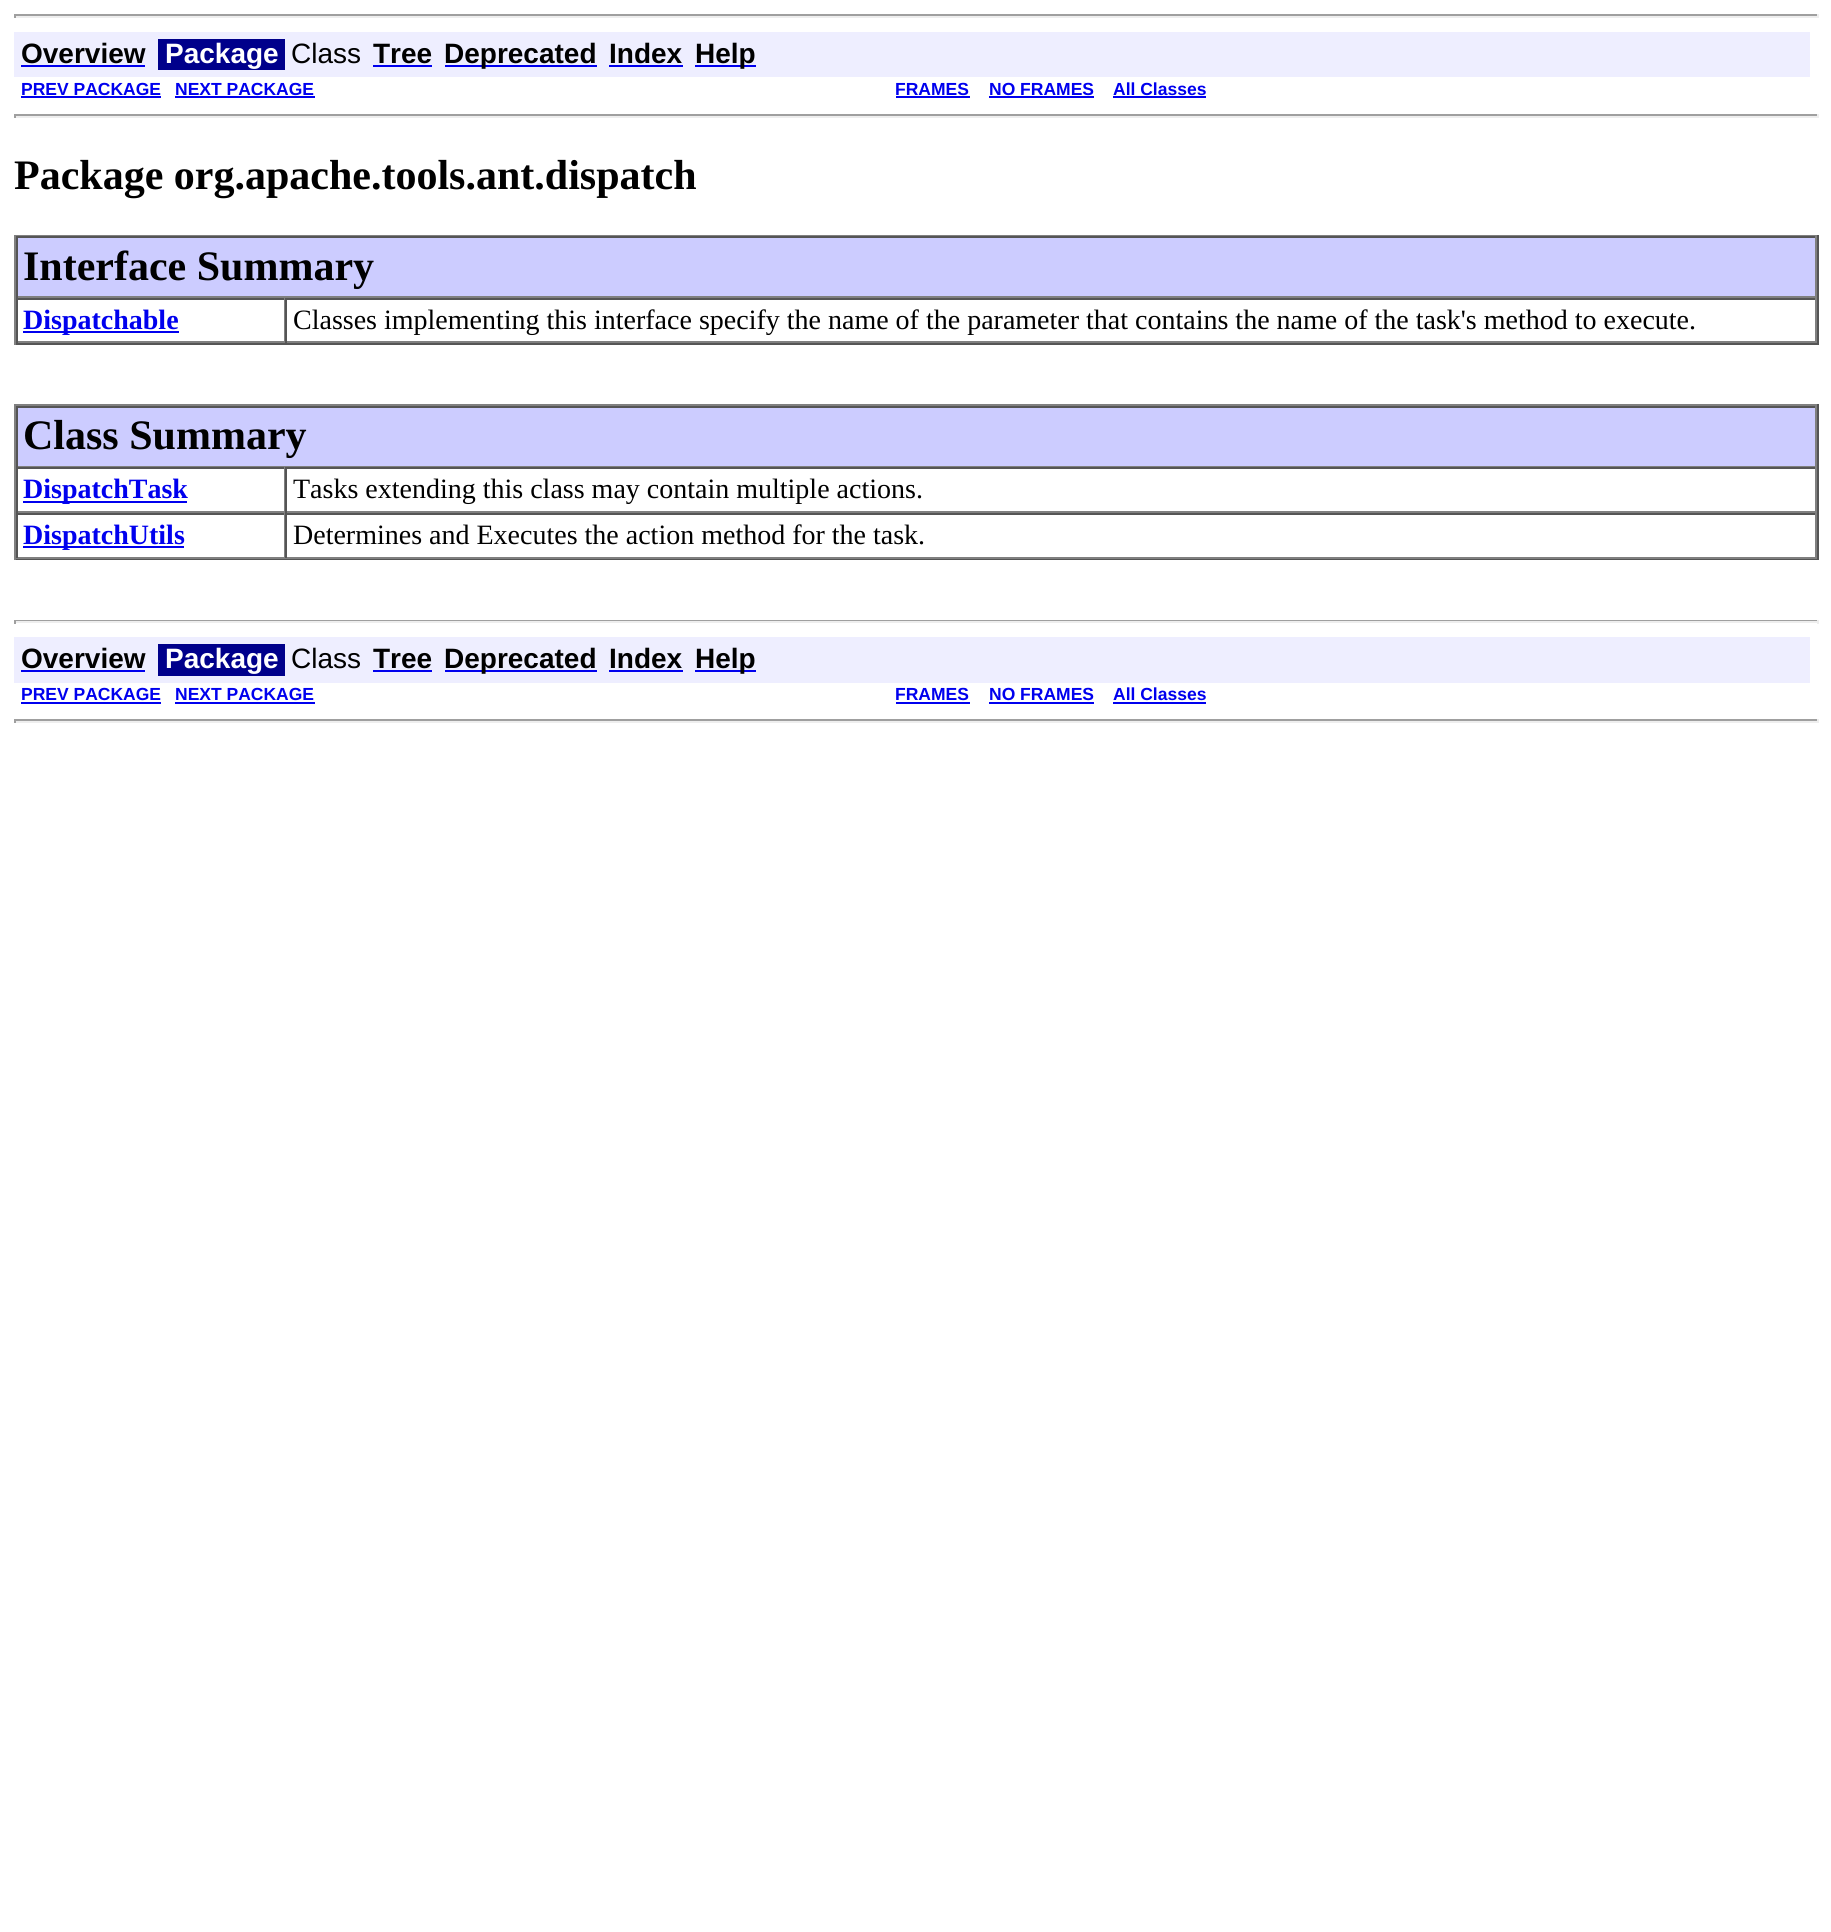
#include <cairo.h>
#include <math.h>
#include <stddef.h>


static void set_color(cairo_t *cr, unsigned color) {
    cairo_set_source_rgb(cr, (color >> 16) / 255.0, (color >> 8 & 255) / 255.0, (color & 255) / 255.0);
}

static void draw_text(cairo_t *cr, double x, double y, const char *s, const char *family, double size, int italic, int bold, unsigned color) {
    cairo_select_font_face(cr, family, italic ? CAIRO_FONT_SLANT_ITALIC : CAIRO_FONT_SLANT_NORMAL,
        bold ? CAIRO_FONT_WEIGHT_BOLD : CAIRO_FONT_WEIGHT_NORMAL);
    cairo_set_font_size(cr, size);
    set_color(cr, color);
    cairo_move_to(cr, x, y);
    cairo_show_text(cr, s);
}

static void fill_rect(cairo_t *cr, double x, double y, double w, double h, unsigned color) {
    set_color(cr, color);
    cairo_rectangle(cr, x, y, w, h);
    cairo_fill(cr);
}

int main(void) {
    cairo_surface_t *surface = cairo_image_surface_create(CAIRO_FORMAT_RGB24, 1831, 1932);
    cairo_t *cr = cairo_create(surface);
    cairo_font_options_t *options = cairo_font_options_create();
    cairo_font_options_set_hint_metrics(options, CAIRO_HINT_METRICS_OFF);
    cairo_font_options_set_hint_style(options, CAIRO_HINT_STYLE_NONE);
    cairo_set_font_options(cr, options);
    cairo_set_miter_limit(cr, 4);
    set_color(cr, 0xFFFFFF);
    cairo_paint(cr);
    fill_rect(cr, 14, 14, 1804, 2, 0x9F9F9F);
    fill_rect(cr, 1817, 14, 2, 4, 0xEEEEEE);
    fill_rect(cr, 14, 16, 1804, 2, 0xEEEEEE);
    fill_rect(cr, 14, 14, 2, 4, 0x9F9F9F);
    fill_rect(cr, 14, 32, 1796, 45, 0xEEEEFF);
    draw_text(cr, 21, 63, "Overview", "Liberation Sans", 28, 0, 1, 0x000000);
    fill_rect(cr, 21, 65, 124, 2, 0x0000EE);
    fill_rect(cr, 158, 39, 127, 31, 0x00008B);
    draw_text(cr, 165, 63, "Package", "Liberation Sans", 28, 0, 1, 0xFFFFFF);
    draw_text(cr, 291, 63, "Class", "Liberation Sans", 28, 0, 0, 0x000000);
    draw_text(cr, 373, 63, "Tree", "Liberation Sans", 28, 0, 1, 0x000000);
    fill_rect(cr, 373, 65, 59, 2, 0x0000EE);
    fill_rect(cr, 445, 65, 152, 2, 0x0000EE);
    draw_text(cr, 444, 63, "Deprecated", "Liberation Sans", 28, 0, 1, 0x000000);
    draw_text(cr, 609, 63, "Index", "Liberation Sans", 28, 0, 1, 0x000000);
    fill_rect(cr, 609, 65, 74, 2, 0x0000EE);
    fill_rect(cr, 695, 65, 61, 2, 0x0000EE);
    draw_text(cr, 695, 63, "Help", "Liberation Sans", 28, 0, 1, 0x000000);
    draw_text(cr, 21, 95, "PREV PACKAGE", "Liberation Sans", 17.5, 0, 1, 0x0000EE);
    fill_rect(cr, 21, 96, 140, 2, 0x0000EE);
    draw_text(cr, 175, 95, "NEXT PACKAGE", "Liberation Sans", 17.5, 0, 1, 0x0000EE);
    fill_rect(cr, 175, 96, 140, 2, 0x0000EE);
    draw_text(cr, 895, 95, "FRAMES", "Liberation Sans", 17.5, 0, 1, 0x0000EE);
    fill_rect(cr, 896, 96, 74, 2, 0x0000EE);
    draw_text(cr, 989, 95, "NO FRAMES", "Liberation Sans", 17.5, 0, 1, 0x0000EE);
    fill_rect(cr, 989, 96, 105, 2, 0x0000EE);
    draw_text(cr, 1113, 95, "All Classes", "Liberation Sans", 17.5, 0, 1, 0x0000EE);
    fill_rect(cr, 1113, 96, 93, 2, 0x0000EE);
    fill_rect(cr, 14, 114, 1804, 2, 0x9F9F9F);
    fill_rect(cr, 1817, 114, 2, 4, 0xEEEEEE);
    fill_rect(cr, 14, 116, 1804, 2, 0xEEEEEE);
    fill_rect(cr, 14, 114, 2, 4, 0x9F9F9F);
    draw_text(cr, 14, 189, "Package org.apache.tools.ant.dispatch", "Liberation Serif", 42, 0, 1, 0x000000);
    fill_rect(cr, 14, 235, 1804, 1, 0x808080);
    fill_rect(cr, 1817, 235, 2, 110, 0x555555);
    fill_rect(cr, 14, 343, 1804, 2, 0x555555);
    fill_rect(cr, 14, 235, 2, 110, 0x808080);
    fill_rect(cr, 18, 238, 1797, 58, 0xCCCCFF);
    fill_rect(cr, 16, 236, 1801, 2, 0x555555);
    fill_rect(cr, 1815, 236, 2, 62, 0x808080);
    fill_rect(cr, 16, 296, 1801, 2, 0x808080);
    fill_rect(cr, 16, 236, 2, 62, 0x555555);
    draw_text(cr, 23, 280, "Interface Summary", "Liberation Serif", 42, 0, 1, 0x000000);
    fill_rect(cr, 16, 298, 1801, 2, 0x555555);
    fill_rect(cr, 284, 298, 1, 45, 0x808080);
    fill_rect(cr, 16, 341, 269, 2, 0x808080);
    fill_rect(cr, 16, 298, 2, 45, 0x555555);
    fill_rect(cr, 23, 331, 156, 2, 0x0000EE);
    draw_text(cr, 23, 329, "Dispatchable", "Liberation Serif", 28, 0, 1, 0x0000EE);
    fill_rect(cr, 1815, 298, 2, 45, 0x808080);
    fill_rect(cr, 285, 341, 1532, 2, 0x808080);
    fill_rect(cr, 285, 298, 2, 45, 0x555555);
    draw_text(cr, 293, 329, "Classes implementing this interface specify the name of the parameter that contains the name of the task's method to execute.", "Liberation Serif", 28, 0, 0, 0x000000);
    fill_rect(cr, 14, 404, 1804, 2, 0x808080);
    fill_rect(cr, 1817, 404, 2, 156, 0x555555);
    fill_rect(cr, 14, 558, 1804, 2, 0x555555);
    fill_rect(cr, 14, 404, 2, 156, 0x808080);
    fill_rect(cr, 18, 408, 1797, 58, 0xCCCCFF);
    fill_rect(cr, 16, 406, 1801, 2, 0x555555);
    fill_rect(cr, 1815, 406, 2, 61, 0x808080);
    fill_rect(cr, 16, 466, 1801, 1, 0x808080);
    fill_rect(cr, 16, 406, 2, 61, 0x555555);
    draw_text(cr, 23, 449, "Class Summary", "Liberation Serif", 42, 0, 1, 0x000000);
    fill_rect(cr, 16, 467, 1801, 2, 0x555555);
    fill_rect(cr, 284, 467, 1, 46, 0x808080);
    fill_rect(cr, 16, 511, 269, 2, 0x808080);
    fill_rect(cr, 16, 467, 2, 46, 0x555555);
    fill_rect(cr, 23, 501, 164, 2, 0x0000EE);
    draw_text(cr, 23, 498, "DispatchTask", "Liberation Serif", 28, 0, 1, 0x0000EE);
    fill_rect(cr, 1815, 467, 2, 46, 0x808080);
    fill_rect(cr, 285, 511, 1532, 2, 0x808080);
    fill_rect(cr, 285, 467, 2, 46, 0x555555);
    draw_text(cr, 293, 498, "Tasks extending this class may contain multiple actions.", "Liberation Serif", 28, 0, 0, 0x000000);
    fill_rect(cr, 16, 513, 1801, 2, 0x555555);
    fill_rect(cr, 284, 513, 1, 45, 0x808080);
    fill_rect(cr, 16, 557, 269, 2, 0x808080);
    fill_rect(cr, 16, 513, 2, 45, 0x555555);
    fill_rect(cr, 23, 546, 161, 2, 0x0000EE);
    draw_text(cr, 23, 544, "DispatchUtils", "Liberation Serif", 28, 0, 1, 0x0000EE);
    fill_rect(cr, 1815, 513, 2, 45, 0x808080);
    fill_rect(cr, 285, 557, 1532, 2, 0x808080);
    fill_rect(cr, 285, 513, 2, 45, 0x555555);
    draw_text(cr, 293, 544, "Determines and Executes the action method for the task.", "Liberation Serif", 28, 0, 0, 0x000000);
    fill_rect(cr, 14, 620, 1804, 1, 0x9F9F9F);
    fill_rect(cr, 1817, 620, 2, 4, 0xEEEEEE);
    fill_rect(cr, 14, 621, 1804, 2, 0xEEEEEE);
    fill_rect(cr, 14, 620, 2, 4, 0x9F9F9F);
    fill_rect(cr, 14, 637, 1796, 46, 0xEEEEFF);
    draw_text(cr, 21, 668, "Overview", "Liberation Sans", 28, 0, 1, 0x000000);
    fill_rect(cr, 21, 670, 124, 2, 0x0000EE);
    fill_rect(cr, 158, 644, 127, 32, 0x00008B);
    draw_text(cr, 165, 668, "Package", "Liberation Sans", 28, 0, 1, 0xFFFFFF);
    draw_text(cr, 291, 668, "Class", "Liberation Sans", 28, 0, 0, 0x000000);
    draw_text(cr, 373, 668, "Tree", "Liberation Sans", 28, 0, 1, 0x000000);
    fill_rect(cr, 373, 670, 59, 2, 0x0000EE);
    fill_rect(cr, 445, 670, 152, 2, 0x0000EE);
    draw_text(cr, 444, 668, "Deprecated", "Liberation Sans", 28, 0, 1, 0x000000);
    draw_text(cr, 609, 668, "Index", "Liberation Sans", 28, 0, 1, 0x000000);
    fill_rect(cr, 609, 670, 74, 2, 0x0000EE);
    fill_rect(cr, 695, 670, 61, 2, 0x0000EE);
    draw_text(cr, 695, 668, "Help", "Liberation Sans", 28, 0, 1, 0x000000);
    draw_text(cr, 21, 700, "PREV PACKAGE", "Liberation Sans", 17.5, 0, 1, 0x0000EE);
    fill_rect(cr, 21, 702, 140, 2, 0x0000EE);
    draw_text(cr, 175, 700, "NEXT PACKAGE", "Liberation Sans", 17.5, 0, 1, 0x0000EE);
    fill_rect(cr, 175, 702, 140, 2, 0x0000EE);
    draw_text(cr, 895, 700, "FRAMES", "Liberation Sans", 17.5, 0, 1, 0x0000EE);
    fill_rect(cr, 896, 702, 74, 2, 0x0000EE);
    draw_text(cr, 989, 700, "NO FRAMES", "Liberation Sans", 17.5, 0, 1, 0x0000EE);
    fill_rect(cr, 989, 702, 105, 2, 0x0000EE);
    draw_text(cr, 1113, 700, "All Classes", "Liberation Sans", 17.5, 0, 1, 0x0000EE);
    fill_rect(cr, 1113, 702, 93, 2, 0x0000EE);
    fill_rect(cr, 14, 719, 1804, 2, 0x9F9F9F);
    fill_rect(cr, 1817, 719, 2, 4, 0xEEEEEE);
    fill_rect(cr, 14, 721, 1804, 2, 0xEEEEEE);
    fill_rect(cr, 14, 719, 2, 4, 0x9F9F9F);
    cairo_surface_write_to_png(surface, "output.png");
    cairo_font_options_destroy(options);
    cairo_destroy(cr);
    cairo_surface_destroy(surface);
    return 0;
}
